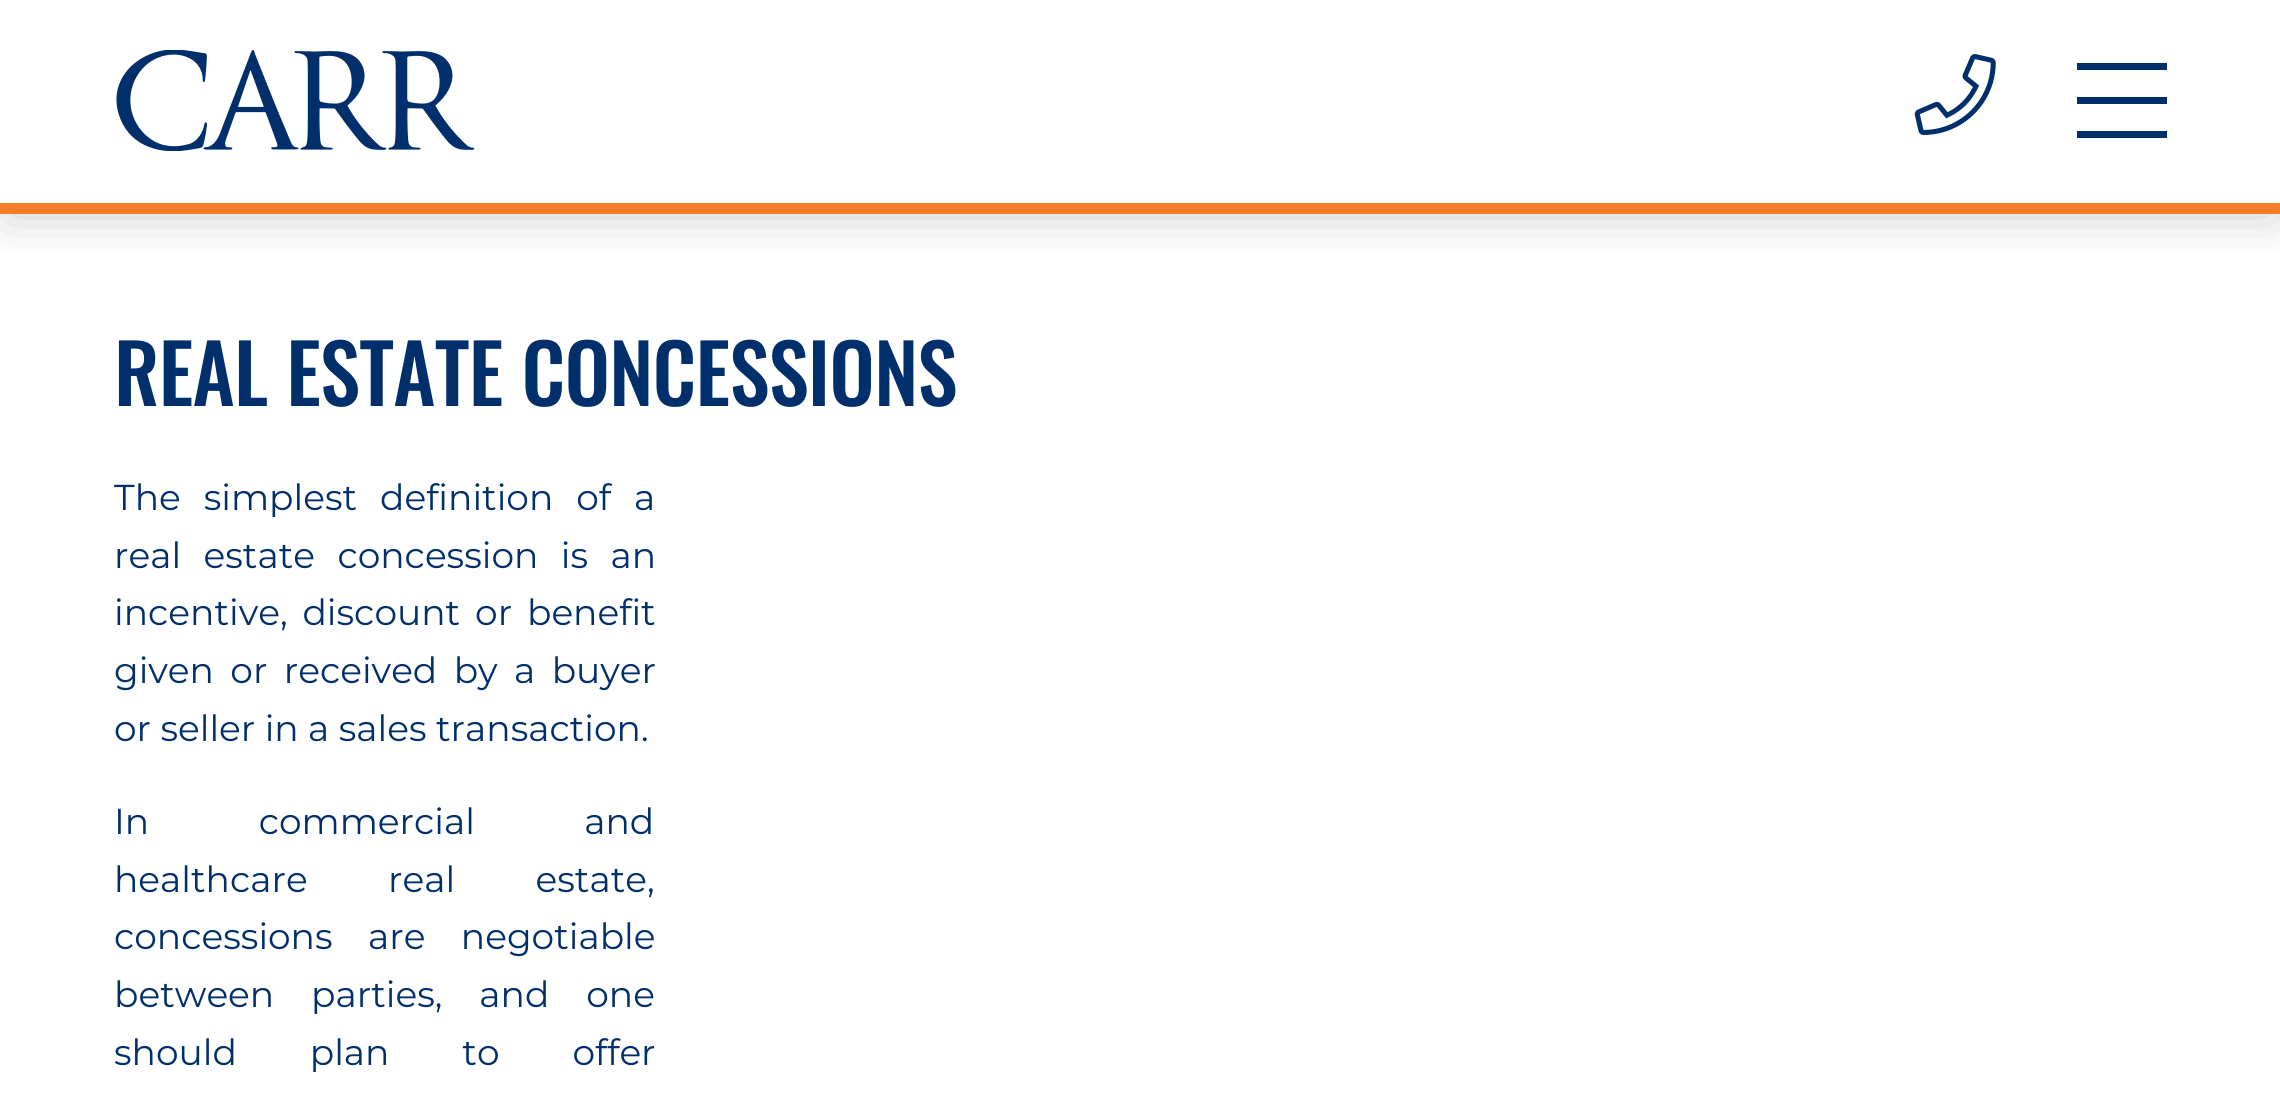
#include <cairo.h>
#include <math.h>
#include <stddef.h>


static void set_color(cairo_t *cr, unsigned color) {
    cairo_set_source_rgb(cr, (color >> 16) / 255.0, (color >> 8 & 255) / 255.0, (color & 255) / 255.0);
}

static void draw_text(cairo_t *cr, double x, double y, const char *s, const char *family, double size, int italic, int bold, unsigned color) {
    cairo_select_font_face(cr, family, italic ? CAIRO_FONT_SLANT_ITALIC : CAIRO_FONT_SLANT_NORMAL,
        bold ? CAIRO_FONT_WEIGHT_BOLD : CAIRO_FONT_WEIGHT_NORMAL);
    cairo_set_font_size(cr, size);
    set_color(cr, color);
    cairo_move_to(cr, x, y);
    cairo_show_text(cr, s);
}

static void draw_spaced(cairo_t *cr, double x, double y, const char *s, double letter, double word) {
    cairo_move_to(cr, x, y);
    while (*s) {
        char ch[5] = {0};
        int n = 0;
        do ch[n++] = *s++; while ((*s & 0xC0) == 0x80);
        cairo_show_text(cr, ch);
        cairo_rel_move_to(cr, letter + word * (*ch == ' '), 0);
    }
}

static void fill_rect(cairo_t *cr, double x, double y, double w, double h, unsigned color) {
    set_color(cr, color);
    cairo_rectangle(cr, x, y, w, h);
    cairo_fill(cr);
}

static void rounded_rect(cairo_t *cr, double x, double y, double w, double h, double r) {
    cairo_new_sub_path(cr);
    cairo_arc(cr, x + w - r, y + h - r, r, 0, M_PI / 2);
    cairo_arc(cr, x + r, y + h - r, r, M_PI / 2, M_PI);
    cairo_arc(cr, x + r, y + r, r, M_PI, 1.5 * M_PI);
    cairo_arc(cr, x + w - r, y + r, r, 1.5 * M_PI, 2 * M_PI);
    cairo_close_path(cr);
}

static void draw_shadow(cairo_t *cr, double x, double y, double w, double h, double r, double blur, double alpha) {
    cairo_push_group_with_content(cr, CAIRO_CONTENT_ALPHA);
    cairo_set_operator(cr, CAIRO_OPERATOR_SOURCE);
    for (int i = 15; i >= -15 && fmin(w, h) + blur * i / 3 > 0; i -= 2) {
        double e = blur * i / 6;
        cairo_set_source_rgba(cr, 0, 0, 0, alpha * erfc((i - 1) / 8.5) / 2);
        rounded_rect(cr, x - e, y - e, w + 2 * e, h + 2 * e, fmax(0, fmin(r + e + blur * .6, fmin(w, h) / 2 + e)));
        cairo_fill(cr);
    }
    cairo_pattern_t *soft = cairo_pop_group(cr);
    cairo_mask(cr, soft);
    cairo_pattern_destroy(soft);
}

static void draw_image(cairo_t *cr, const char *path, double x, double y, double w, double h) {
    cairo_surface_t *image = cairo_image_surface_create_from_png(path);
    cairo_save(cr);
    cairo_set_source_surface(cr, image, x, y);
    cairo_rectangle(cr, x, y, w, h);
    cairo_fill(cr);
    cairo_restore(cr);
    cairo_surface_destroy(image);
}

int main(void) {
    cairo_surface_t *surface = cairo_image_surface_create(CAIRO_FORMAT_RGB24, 2280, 1096);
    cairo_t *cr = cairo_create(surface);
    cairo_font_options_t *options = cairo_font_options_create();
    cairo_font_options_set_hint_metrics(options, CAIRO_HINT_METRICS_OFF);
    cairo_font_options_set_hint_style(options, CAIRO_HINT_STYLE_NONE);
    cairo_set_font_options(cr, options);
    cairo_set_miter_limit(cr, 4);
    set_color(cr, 0xFFFFFF);
    cairo_paint(cr);
    cairo_save(cr);
    cairo_rectangle(cr, 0, 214, 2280, 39);
    cairo_clip(cr);
    set_color(cr, 0x43464A);
    draw_shadow(cr, 9, 9, 2264, 196, 0, 29, 0.4);
    cairo_restore(cr);
    fill_rect(cr, 0, 203, 2280, 11, 0xF57F29);
    draw_image(cr, "assets/img1.png", 116, 50, 359, 101);
    draw_image(cr, "assets/img2.png", 1914, 54, 82, 81);
    fill_rect(cr, 2077, 63, 90, 7, 0x002F6C);
    fill_rect(cr, 2077, 97, 90, 7, 0x002F6C);
    fill_rect(cr, 2077, 131, 90, 7, 0x002F6C);
    cairo_select_font_face(cr, "Oswald Medium", CAIRO_FONT_SLANT_NORMAL, CAIRO_FONT_WEIGHT_NORMAL);
    cairo_set_font_size(cr, 81);
    draw_spaced(cr, 114, 406, "REAL ESTATE CONCESSIONS", -0.8, 0);
    cairo_select_font_face(cr, "Montserrat", CAIRO_FONT_SLANT_NORMAL, CAIRO_FONT_WEIGHT_NORMAL);
    cairo_set_font_size(cr, 36);
    draw_spaced(cr, 114, 510, "The simplest definition of a", 0, 13.5);
    draw_spaced(cr, 114, 568, "real estate concession is an", 0, 13);
    draw_spaced(cr, 114, 625, "incentive, discount or benefit", 0, 5.5);
    draw_spaced(cr, 114, 683, "given or received by a buyer", 0, 7);
    draw_text(cr, 114, 741, "or seller in a sales transaction.", "Montserrat", 36, 0, 0, 0x002F6C);
    draw_spaced(cr, 114, 834, "In commercial and", 0, 100);
    draw_spaced(cr, 114, 892, "healthcare real estate,", 0, 71);
    draw_spaced(cr, 114, 949, "concessions are negotiable", 0, 26);
    draw_spaced(cr, 114, 1007, "between parties, and one", 0, 27.5);
    draw_spaced(cr, 114, 1065, "should plan to offer", 0, 63.5);
    cairo_surface_write_to_png(surface, "output.png");
    cairo_font_options_destroy(options);
    cairo_destroy(cr);
    cairo_surface_destroy(surface);
    return 0;
}
